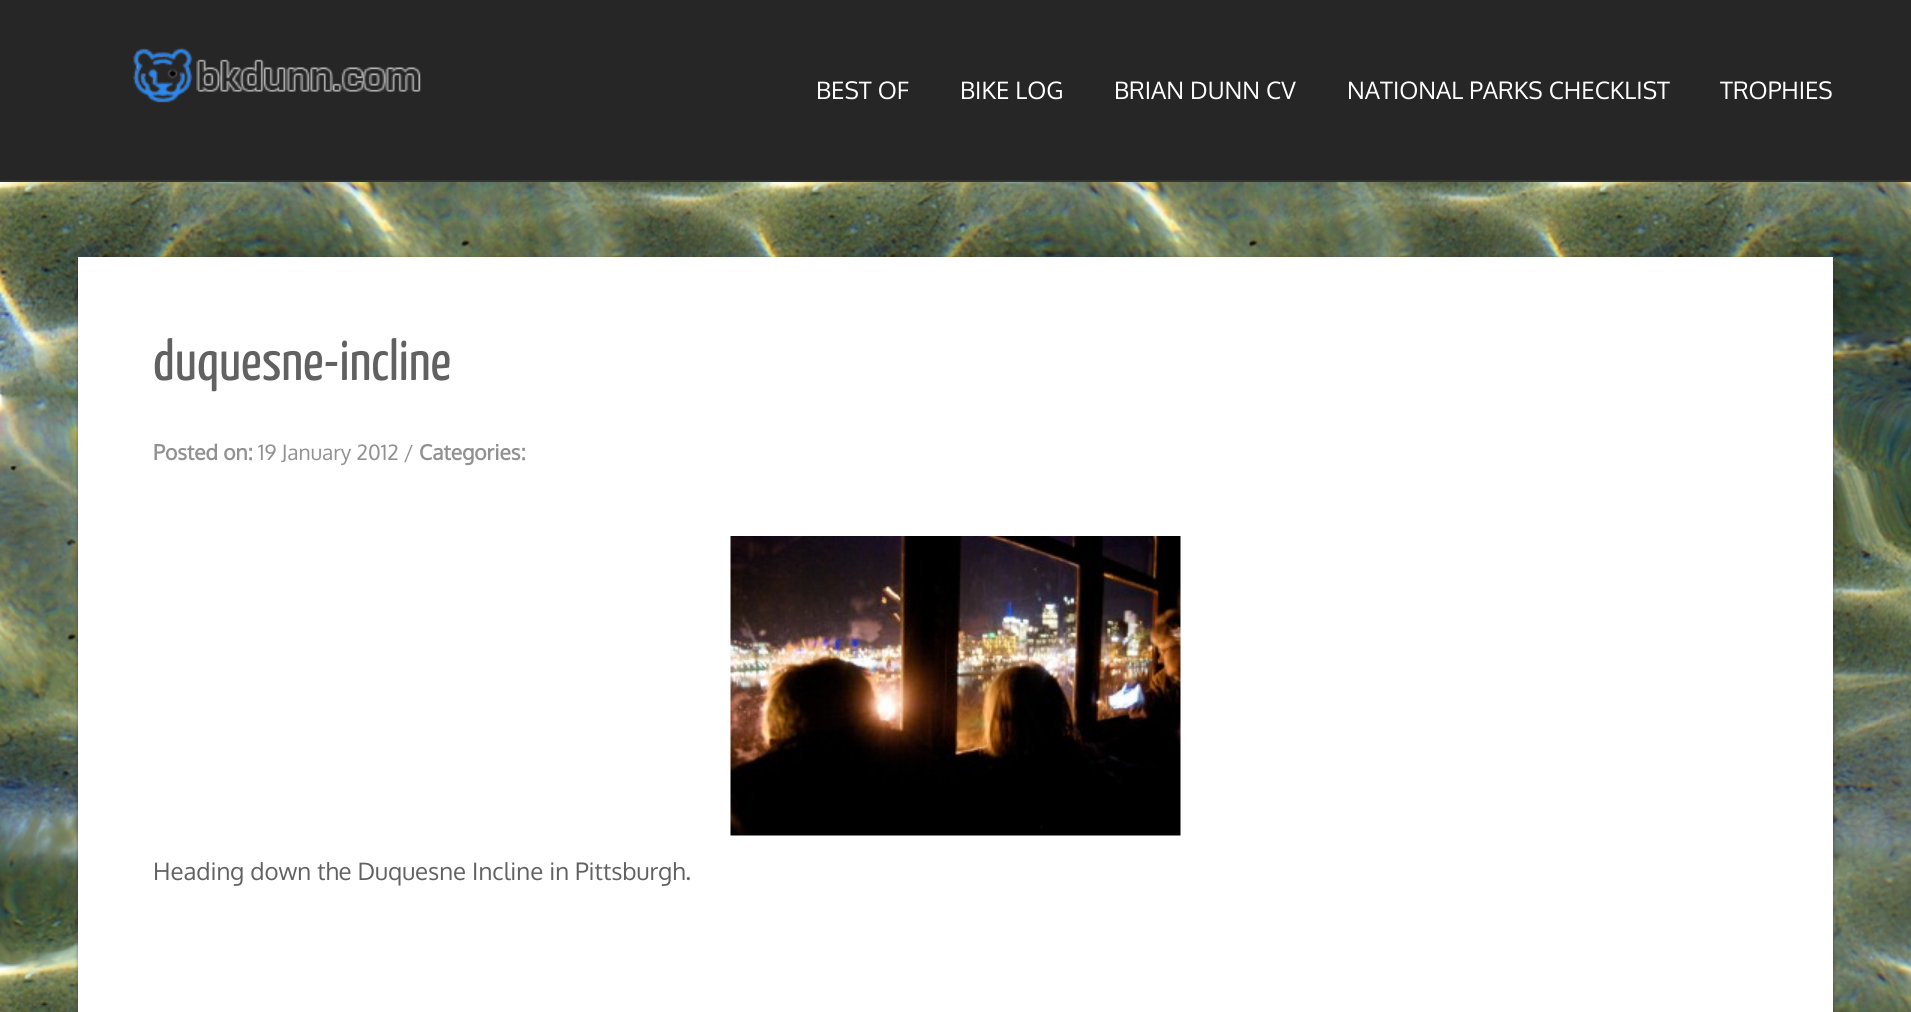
#include <cairo.h>
#include <math.h>
#include <stddef.h>


static void set_color(cairo_t *cr, unsigned color) {
    cairo_set_source_rgb(cr, (color >> 16) / 255.0, (color >> 8 & 255) / 255.0, (color & 255) / 255.0);
}

static void draw_text(cairo_t *cr, double x, double y, const char *s, const char *family, double size, int italic, int bold, unsigned color) {
    cairo_select_font_face(cr, family, italic ? CAIRO_FONT_SLANT_ITALIC : CAIRO_FONT_SLANT_NORMAL,
        bold ? CAIRO_FONT_WEIGHT_BOLD : CAIRO_FONT_WEIGHT_NORMAL);
    cairo_set_font_size(cr, size);
    set_color(cr, color);
    cairo_move_to(cr, x, y);
    cairo_show_text(cr, s);
}

static void fill_rect(cairo_t *cr, double x, double y, double w, double h, unsigned color) {
    set_color(cr, color);
    cairo_rectangle(cr, x, y, w, h);
    cairo_fill(cr);
}

static void rounded_rect(cairo_t *cr, double x, double y, double w, double h, double r) {
    cairo_new_sub_path(cr);
    cairo_arc(cr, x + w - r, y + h - r, r, 0, M_PI / 2);
    cairo_arc(cr, x + r, y + h - r, r, M_PI / 2, M_PI);
    cairo_arc(cr, x + r, y + r, r, M_PI, 1.5 * M_PI);
    cairo_arc(cr, x + w - r, y + r, r, 1.5 * M_PI, 2 * M_PI);
    cairo_close_path(cr);
}

static void draw_shadow(cairo_t *cr, double x, double y, double w, double h, double r, double blur, double alpha) {
    cairo_push_group_with_content(cr, CAIRO_CONTENT_ALPHA);
    cairo_set_operator(cr, CAIRO_OPERATOR_SOURCE);
    for (int i = 15; i >= -15 && fmin(w, h) + blur * i / 3 > 0; i -= 2) {
        double e = blur * i / 6;
        cairo_set_source_rgba(cr, 0, 0, 0, alpha * erfc((i - 1) / 8.5) / 2);
        rounded_rect(cr, x - e, y - e, w + 2 * e, h + 2 * e, fmax(0, fmin(r + e + blur * .6, fmin(w, h) / 2 + e)));
        cairo_fill(cr);
    }
    cairo_pattern_t *soft = cairo_pop_group(cr);
    cairo_mask(cr, soft);
    cairo_pattern_destroy(soft);
}

static void draw_image(cairo_t *cr, const char *path, double x, double y, double w, double h) {
    cairo_surface_t *image = cairo_image_surface_create_from_png(path);
    cairo_save(cr);
    cairo_set_source_surface(cr, image, x, y);
    cairo_rectangle(cr, x, y, w, h);
    cairo_fill(cr);
    cairo_restore(cr);
    cairo_surface_destroy(image);
}

int main(void) {
    cairo_surface_t *surface = cairo_image_surface_create(CAIRO_FORMAT_RGB24, 1911, 1012);
    cairo_t *cr = cairo_create(surface);
    cairo_font_options_t *options = cairo_font_options_create();
    cairo_font_options_set_hint_metrics(options, CAIRO_HINT_METRICS_OFF);
    cairo_font_options_set_hint_style(options, CAIRO_HINT_STYLE_NONE);
    cairo_set_font_options(cr, options);
    cairo_set_miter_limit(cr, 4);
    set_color(cr, 0xFFFFFF);
    cairo_paint(cr);
    draw_image(cr, "assets/img1.png", 0, 182, 1911, 830);
    fill_rect(cr, 0, 0, 1911, 180, 0x262626);
    fill_rect(cr, 0, 180, 1911, 2, 0x333333);
    draw_image(cr, "assets/img2.png", 133, 47, 288, 56);
    draw_text(cr, 816, 99, "BEST OF", "Oxygen", 24, 0, 0, 0xFFFFFF);
    draw_text(cr, 960, 99, "BIKE LOG", "Oxygen", 24, 0, 0, 0xFFFFFF);
    draw_text(cr, 1114, 99, "BRIAN DUNN CV", "Oxygen", 24, 0, 0, 0xFFFFFF);
    draw_text(cr, 1347, 99, "NATIONAL PARKS CHECKLIST", "Oxygen", 24, 0, 0, 0xFFFFFF);
    draw_text(cr, 1720, 99, "TROPHIES", "Oxygen", 24, 0, 0, 0xFFFFFF);
    set_color(cr, 0x221919);
    draw_shadow(cr, 78, 258, 1755, 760, 0, 2, 0.4);
    fill_rect(cr, 78, 257, 1755, 755, 0xFFFFFF);
    draw_text(cr, 153, 380, "duquesne-incline", "Yanone Kaffeesatz ExtraLight", 57, 0, 0, 0x616161);
    draw_text(cr, 153, 460, "Posted on:", "Oxygen", 21, 0, 1, 0x919191);
    draw_text(cr, 258, 460, "19 January 2012 /", "Oxygen", 21, 0, 0, 0x919191);
    draw_text(cr, 419, 460, "Categories:", "Oxygen", 21, 0, 1, 0x919191);
    draw_image(cr, "assets/img3.png", 730, 536, 451, 300);
    draw_text(cr, 153, 880, "Heading down the Duquesne Incline in Pittsburgh.", "Oxygen", 24, 0, 0, 0x616161);
    cairo_surface_write_to_png(surface, "output.png");
    cairo_font_options_destroy(options);
    cairo_destroy(cr);
    cairo_surface_destroy(surface);
    return 0;
}
